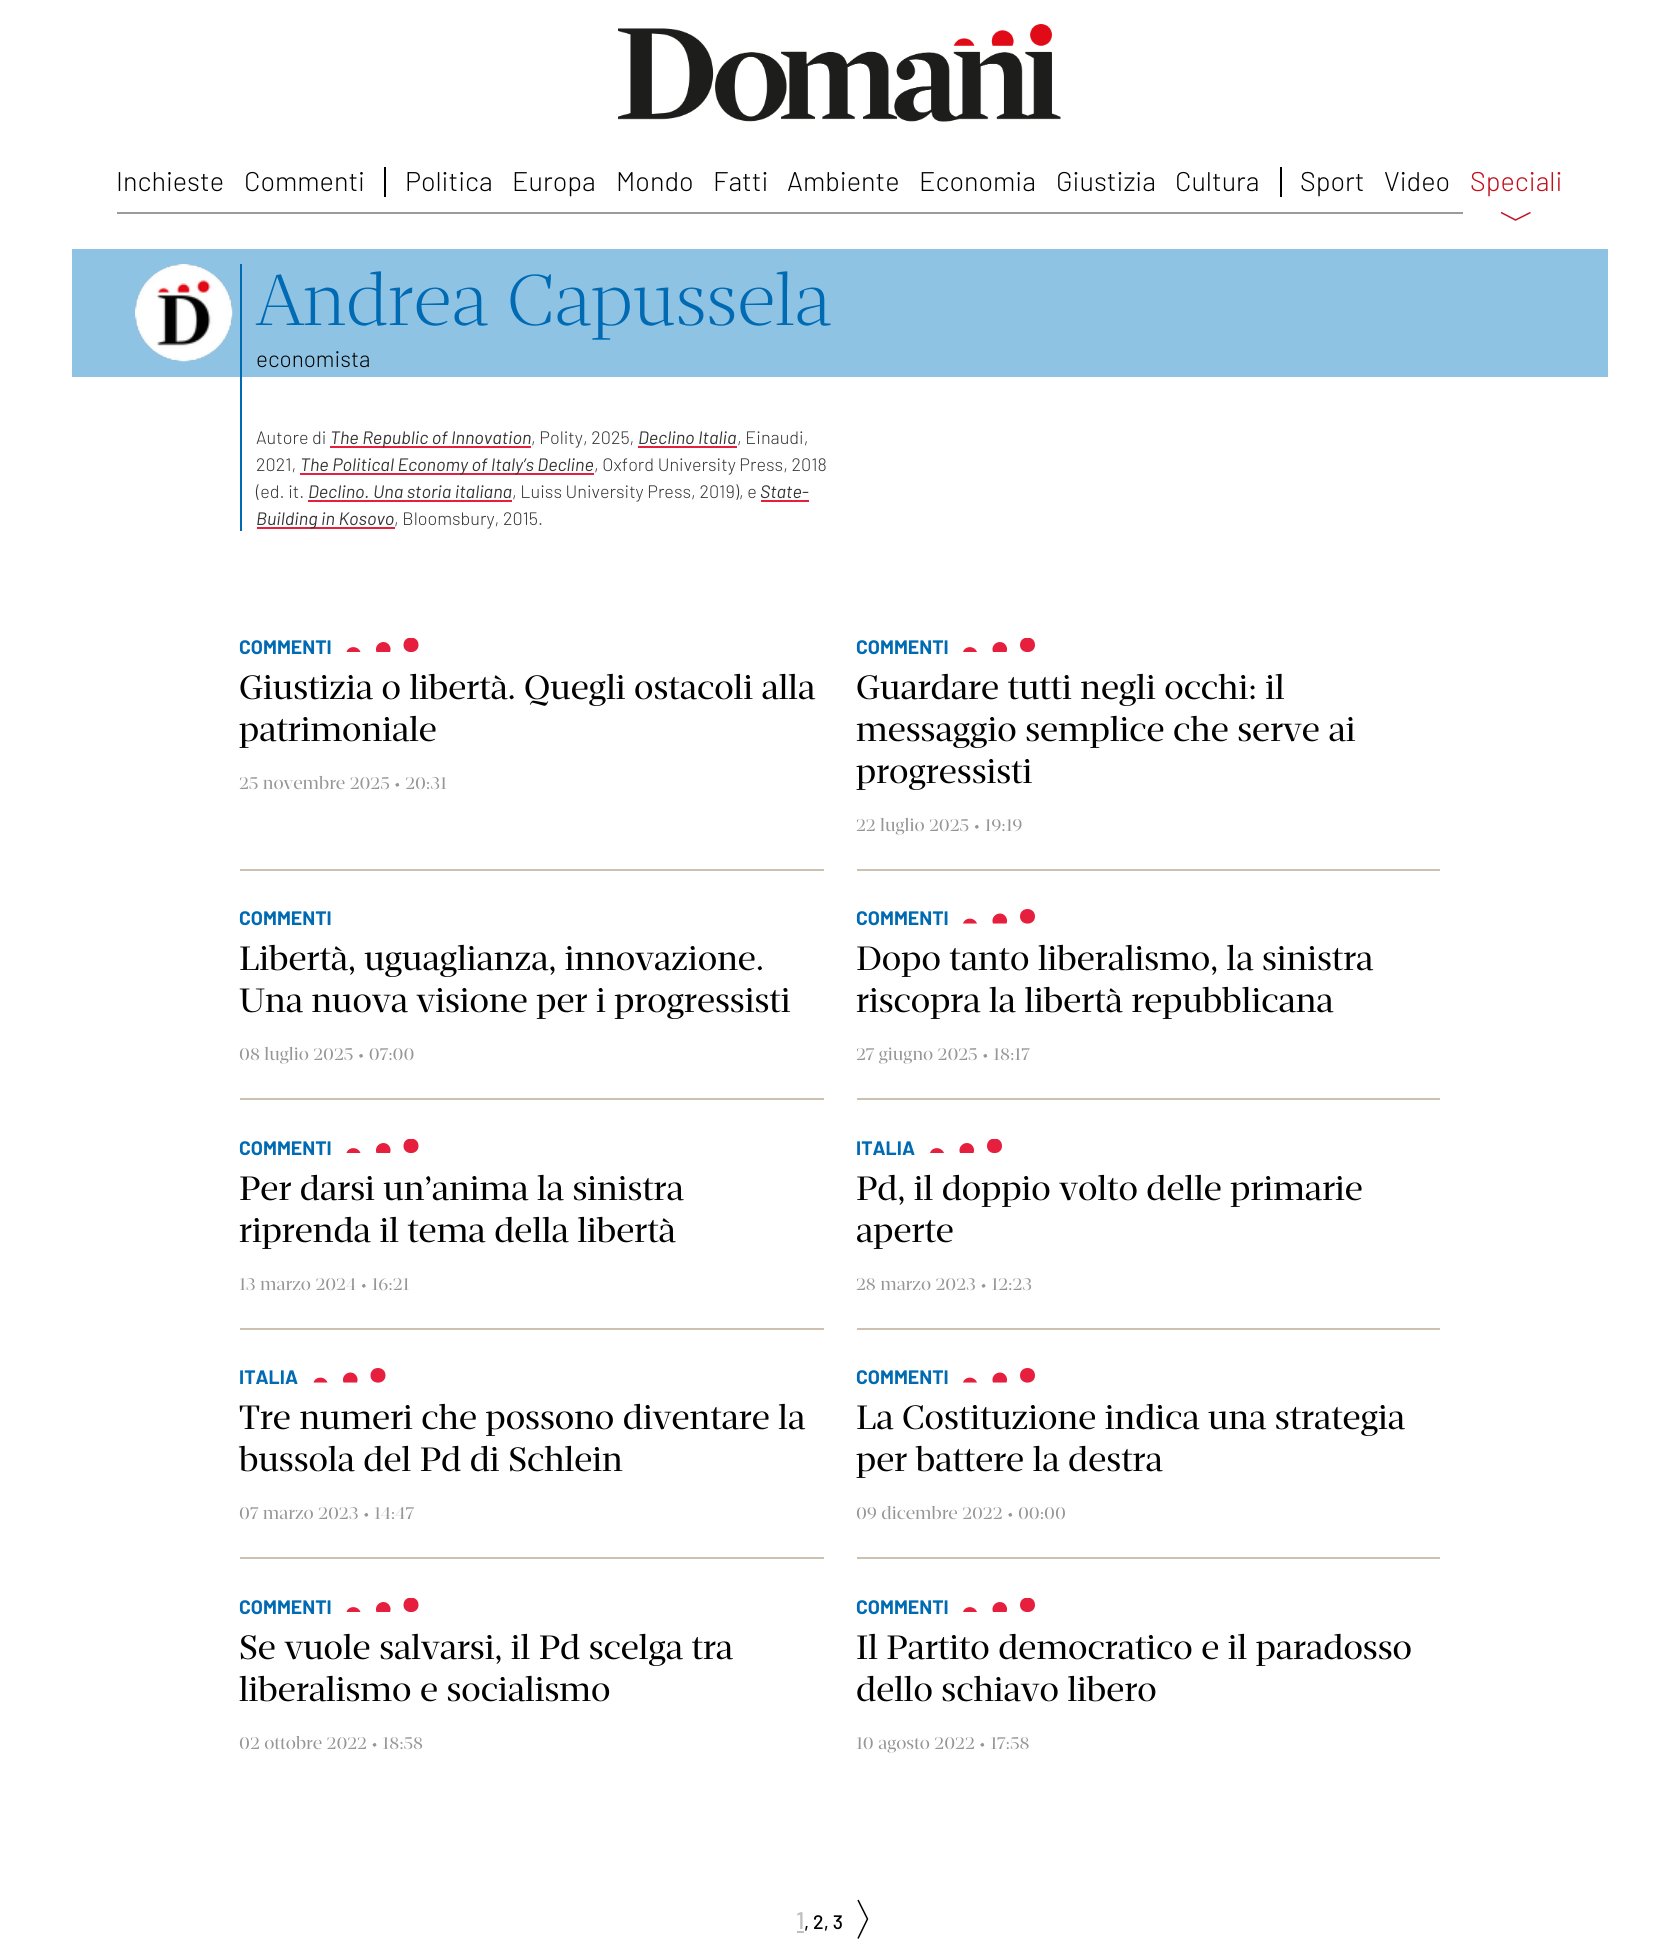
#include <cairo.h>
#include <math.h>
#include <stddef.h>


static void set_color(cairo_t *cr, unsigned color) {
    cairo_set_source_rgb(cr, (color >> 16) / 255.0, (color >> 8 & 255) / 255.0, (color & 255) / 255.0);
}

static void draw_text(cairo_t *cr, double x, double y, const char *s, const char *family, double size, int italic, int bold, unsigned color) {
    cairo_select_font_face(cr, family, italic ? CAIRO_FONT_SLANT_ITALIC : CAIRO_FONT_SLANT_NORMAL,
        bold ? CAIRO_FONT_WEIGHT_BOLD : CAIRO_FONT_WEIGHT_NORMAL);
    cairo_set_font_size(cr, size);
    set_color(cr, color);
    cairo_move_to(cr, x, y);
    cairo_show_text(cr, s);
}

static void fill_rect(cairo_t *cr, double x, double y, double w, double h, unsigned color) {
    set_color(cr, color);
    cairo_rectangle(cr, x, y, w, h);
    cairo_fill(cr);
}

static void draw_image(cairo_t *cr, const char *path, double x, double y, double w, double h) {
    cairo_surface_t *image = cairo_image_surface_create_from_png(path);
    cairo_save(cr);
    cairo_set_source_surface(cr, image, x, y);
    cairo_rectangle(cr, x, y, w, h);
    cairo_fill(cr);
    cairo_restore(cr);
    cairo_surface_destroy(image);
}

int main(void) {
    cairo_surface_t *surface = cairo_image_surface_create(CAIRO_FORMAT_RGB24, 1678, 1940);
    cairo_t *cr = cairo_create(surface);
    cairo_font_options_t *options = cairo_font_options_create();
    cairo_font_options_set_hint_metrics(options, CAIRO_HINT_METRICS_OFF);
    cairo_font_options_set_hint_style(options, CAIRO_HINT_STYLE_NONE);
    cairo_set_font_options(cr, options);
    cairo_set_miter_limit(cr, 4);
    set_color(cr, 0xFFFFFF);
    cairo_paint(cr);
    draw_image(cr, "assets/img1.png", 618, 24, 443, 98);
    draw_text(cr, 116, 191, "Inchieste", "Barlow Light", 27, 0, 0, 0x000000);
    draw_text(cr, 244, 191, "Commenti", "Barlow Light", 27, 0, 0, 0x000000);
    fill_rect(cr, 384, 167, 2, 30, 0x000000);
    draw_text(cr, 405, 191, "Politica", "Barlow Light", 27, 0, 0, 0x000000);
    draw_text(cr, 512, 191, "Europa", "Barlow Light", 27, 0, 0, 0x000000);
    draw_text(cr, 616, 191, "Mondo", "Barlow Light", 27, 0, 0, 0x000000);
    draw_text(cr, 713, 191, "Fatti", "Barlow Light", 27, 0, 0, 0x000000);
    draw_text(cr, 787, 191, "Ambiente", "Barlow Light", 27, 0, 0, 0x000000);
    draw_text(cr, 919, 191, "Economia", "Barlow Light", 27, 0, 0, 0x000000);
    draw_text(cr, 1056, 191, "Giustizia", "Barlow Light", 27, 0, 0, 0x000000);
    draw_text(cr, 1175, 191, "Cultura", "Barlow Light", 27, 0, 0, 0x000000);
    fill_rect(cr, 1280, 167, 2, 30, 0x000000);
    draw_text(cr, 1300, 191, "Sport", "Barlow Light", 27, 0, 0, 0x000000);
    draw_text(cr, 1384, 191, "Video", "Barlow Light", 27, 0, 0, 0x000000);
    draw_text(cr, 1470, 191, "Speciali", "Barlow Light", 27, 0, 0, 0xC10E1A);
    cairo_new_path(cr);
    cairo_move_to(cr, 1530.5, 212.5);
    cairo_line_to(cr, 1515.5, 220);
    cairo_line_to(cr, 1501, 212.5);
    set_color(cr, 0xC01126);
    cairo_set_line_width(cr, 1.5);
    cairo_stroke(cr);
    fill_rect(cr, 117, 212, 1346, 2, 0x9B9B9A);
    fill_rect(cr, 72, 249, 1536, 128, 0x8FC3E4);
    draw_image(cr, "assets/img2.png", 135, 264, 98, 98);
    fill_rect(cr, 240, 264, 2, 267, 0x006AB3);
    draw_text(cr, 256, 325, "Andrea Capussela", "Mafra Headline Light", 73.5, 0, 0, 0x006AB3);
    draw_text(cr, 256, 367, "economista", "Barlow Light", 22.5, 0, 0, 0x000000);
    draw_text(cr, 256, 444, "Autore di", "Barlow Light", 18, 0, 0, 0x333333);
    fill_rect(cr, 330, 446, 201, 2, 0xE51F3D);
    draw_text(cr, 330, 444, "The Republic of Innovation", "Barlow", 18, 1, 0, 0x333333);
    draw_text(cr, 531, 444, ", Polity, 2025,", "Barlow Light", 18, 0, 0, 0x333333);
    draw_text(cr, 638, 444, "Declino Italia", "Barlow", 18, 1, 0, 0x333333);
    draw_text(cr, 737, 444, ", Einaudi,", "Barlow Light", 18, 0, 0, 0x333333);
    fill_rect(cr, 638, 446, 99, 2, 0xE51F3D);
    draw_text(cr, 256, 471, "2021,", "Barlow Light", 18, 0, 0, 0x333333);
    fill_rect(cr, 300, 473, 294, 2, 0xE51F3D);
    draw_text(cr, 300, 471, "The Political Economy of Italy", "Barlow", 18, 1, 0, 0x333333);
    draw_text(cr, 523, 471, "’s Decline", "Barlow", 18, 1, 0, 0x333333);
    draw_text(cr, 594, 471, ", Oxford University Press, 2018", "Barlow Light", 18, 0, 0, 0x333333);
    draw_text(cr, 256, 498, "(ed. it.", "Barlow Light", 18, 0, 0, 0x333333);
    draw_text(cr, 308, 498, "Declino. Una storia italiana", "Barlow", 18, 1, 0, 0x333333);
    draw_text(cr, 512, 498, ", Luiss University Press, 2019), e", "Barlow Light", 18, 0, 0, 0x333333);
    fill_rect(cr, 308, 500, 204, 2, 0xE51F3D);
    draw_text(cr, 760, 498, "State-", "Barlow", 18, 1, 0, 0x333333);
    fill_rect(cr, 761, 500, 48, 2, 0xE51F3D);
    fill_rect(cr, 257, 527, 138, 2, 0xE51F3D);
    draw_text(cr, 256, 525, "Building in Kosovo", "Barlow", 18, 1, 0, 0x333333);
    draw_text(cr, 394, 525, ", Bloomsbury, 2015.", "Barlow Light", 18, 0, 0, 0x333333);
    fill_rect(cr, 240, 869, 584, 2, 0xCDC2B0);
    draw_text(cr, 239, 654, "COMMENTI", "Barlow", 19.5, 0, 1, 0x006AB3);
    cairo_save(cr);
    cairo_rectangle(cr, 347, 638, 72, 14);
    cairo_clip(cr);
    set_color(cr, 0xE51F3D);
    cairo_new_path(cr);
    cairo_move_to(cr, 418.5, 645);
    cairo_curve_to(cr, 418.5, 654.5, 403.5, 654.5, 403.5, 645);
    cairo_curve_to(cr, 403.5, 635, 418.5, 635, 418.5, 645);
    cairo_close_path(cr);
    cairo_fill(cr);
    cairo_restore(cr);
    set_color(cr, 0xE51F3D);
    cairo_new_path(cr);
    cairo_move_to(cr, 383.5, 642);
    cairo_curve_to(cr, 378, 642, 374.5, 647.5, 376.5, 652);
    cairo_line_to(cr, 390, 652);
    cairo_curve_to(cr, 392, 647.5, 388.5, 642, 383.5, 642);
    cairo_close_path(cr);
    cairo_move_to(cr, 346.5, 652);
    cairo_line_to(cr, 360.5, 652);
    cairo_curve_to(cr, 358, 645.5, 348.5, 645.5, 346.5, 652);
    cairo_close_path(cr);
    cairo_fill(cr);
    draw_text(cr, 239, 699, "Giustizia o libertà. Quegli ostacoli alla", "Mafra Headline", 34.5, 0, 0, 0x000000);
    draw_text(cr, 239, 741, "patrimoniale", "Mafra Headline", 34.5, 0, 0, 0x000000);
    draw_text(cr, 239, 789, "25 novembre 2025 • 20:31", "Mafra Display", 18, 0, 0, 0x969696);
    fill_rect(cr, 857, 869, 583, 2, 0xCDC2B0);
    draw_text(cr, 856, 654, "COMMENTI", "Barlow", 19.5, 0, 1, 0x006AB3);
    cairo_save(cr);
    cairo_rectangle(cr, 963, 638, 72, 14);
    cairo_clip(cr);
    set_color(cr, 0xE51F3D);
    cairo_new_path(cr);
    cairo_move_to(cr, 1035, 645);
    cairo_curve_to(cr, 1035, 654.5, 1020, 654.5, 1020, 645);
    cairo_curve_to(cr, 1020, 635, 1035, 635, 1035, 645);
    cairo_close_path(cr);
    cairo_fill(cr);
    cairo_restore(cr);
    set_color(cr, 0xE51F3D);
    cairo_new_path(cr);
    cairo_move_to(cr, 1000, 642);
    cairo_curve_to(cr, 994.5, 642, 991, 647.5, 993, 652);
    cairo_line_to(cr, 1006.5, 652);
    cairo_curve_to(cr, 1008.5, 647.5, 1005, 642, 1000, 642);
    cairo_close_path(cr);
    cairo_move_to(cr, 963, 652);
    cairo_line_to(cr, 977, 652);
    cairo_curve_to(cr, 974.5, 645.5, 965, 645.5, 963, 652);
    cairo_close_path(cr);
    cairo_fill(cr);
    draw_text(cr, 856, 699, "Guardare tutti negli occhi: il", "Mafra Headline", 34.5, 0, 0, 0x000000);
    draw_text(cr, 856, 741, "messaggio semplice che serve ai", "Mafra Headline", 34.5, 0, 0, 0x000000);
    draw_text(cr, 856, 783, "progressisti", "Mafra Headline", 34.5, 0, 0, 0x000000);
    draw_text(cr, 856, 831, "22 luglio 2025 • 19:19", "Mafra Display", 18, 0, 0, 0x969696);
    fill_rect(cr, 240, 1098, 584, 2, 0xCDC2B0);
    draw_text(cr, 239, 925, "COMMENTI", "Barlow", 19.5, 0, 1, 0x006AB3);
    draw_text(cr, 239, 970, "Libertà, uguaglianza, innovazione.", "Mafra Headline", 34.5, 0, 0, 0x000000);
    draw_text(cr, 239, 1012, "Una nuova visione per i progressisti", "Mafra Headline", 34.5, 0, 0, 0x000000);
    draw_text(cr, 239, 1060, "08 luglio 2025 • 07:00", "Mafra Display", 18, 0, 0, 0x969696);
    fill_rect(cr, 857, 1098, 583, 2, 0xCDC2B0);
    draw_text(cr, 856, 925, "COMMENTI", "Barlow", 19.5, 0, 1, 0x006AB3);
    set_color(cr, 0xE51F3D);
    cairo_new_path(cr);
    cairo_move_to(cr, 1035, 916.5);
    cairo_curve_to(cr, 1035, 926, 1020, 926, 1020, 916.5);
    cairo_curve_to(cr, 1020, 906.5, 1035, 906.5, 1035, 916.5);
    cairo_close_path(cr);
    cairo_move_to(cr, 1000, 913.5);
    cairo_curve_to(cr, 994.5, 913.5, 991, 919, 993, 923.5);
    cairo_line_to(cr, 1006.5, 923.5);
    cairo_curve_to(cr, 1008.5, 919, 1005, 913.5, 1000, 913.5);
    cairo_close_path(cr);
    cairo_fill(cr);
    cairo_new_path(cr);
    cairo_move_to(cr, 963, 923.5);
    cairo_line_to(cr, 977, 923.5);
    cairo_curve_to(cr, 974.5, 917, 965, 917, 963, 923.5);
    cairo_close_path(cr);
    cairo_fill(cr);
    draw_text(cr, 856, 970, "Dopo tanto liberalismo, la sinistra", "Mafra Headline", 34.5, 0, 0, 0x000000);
    draw_text(cr, 856, 1012, "riscopra la libertà repubblicana", "Mafra Headline", 34.5, 0, 0, 0x000000);
    draw_text(cr, 856, 1060, "27 giugno 2025 • 18:17", "Mafra Display", 18, 0, 0, 0x969696);
    fill_rect(cr, 240, 1328, 584, 2, 0xCDC2B0);
    draw_text(cr, 239, 1155, "COMMENTI", "Barlow", 19.5, 0, 1, 0x006AB3);
    cairo_save(cr);
    cairo_rectangle(cr, 347, 1139, 72, 14);
    cairo_clip(cr);
    set_color(cr, 0xE51F3D);
    cairo_new_path(cr);
    cairo_move_to(cr, 418.5, 1146);
    cairo_curve_to(cr, 418.5, 1155.5, 403.5, 1155.5, 403.5, 1146);
    cairo_curve_to(cr, 403.5, 1136, 418.5, 1136, 418.5, 1146);
    cairo_close_path(cr);
    cairo_fill(cr);
    cairo_restore(cr);
    set_color(cr, 0xE51F3D);
    cairo_new_path(cr);
    cairo_move_to(cr, 383.5, 1143);
    cairo_curve_to(cr, 378, 1143, 374.5, 1148.5, 376.5, 1153);
    cairo_line_to(cr, 390, 1153);
    cairo_curve_to(cr, 392, 1148.5, 388.5, 1143, 383.5, 1143);
    cairo_close_path(cr);
    cairo_move_to(cr, 346.5, 1153);
    cairo_line_to(cr, 360.5, 1153);
    cairo_curve_to(cr, 358, 1146.5, 348.5, 1146.5, 346.5, 1153);
    cairo_close_path(cr);
    cairo_fill(cr);
    draw_text(cr, 239, 1200, "Per darsi un’anima la sinistra", "Mafra Headline", 34.5, 0, 0, 0x000000);
    draw_text(cr, 239, 1242, "riprenda il tema della libertà", "Mafra Headline", 34.5, 0, 0, 0x000000);
    draw_text(cr, 239, 1290, "13 marzo 2024 • 16:21", "Mafra Display", 18, 0, 0, 0x969696);
    fill_rect(cr, 857, 1328, 583, 2, 0xCDC2B0);
    draw_text(cr, 856, 1155, "ITALIA", "Barlow", 19.5, 0, 1, 0x006AB3);
    cairo_save(cr);
    cairo_rectangle(cr, 930, 1139, 72, 14);
    cairo_clip(cr);
    set_color(cr, 0xE51F3D);
    cairo_new_path(cr);
    cairo_move_to(cr, 1002, 1146);
    cairo_curve_to(cr, 1002, 1155.5, 987, 1155.5, 987, 1146);
    cairo_curve_to(cr, 987, 1136, 1002, 1136, 1002, 1146);
    cairo_close_path(cr);
    cairo_fill(cr);
    cairo_restore(cr);
    set_color(cr, 0xE51F3D);
    cairo_new_path(cr);
    cairo_move_to(cr, 967, 1143);
    cairo_curve_to(cr, 961.5, 1143, 958, 1148.5, 960, 1153);
    cairo_line_to(cr, 973.5, 1153);
    cairo_curve_to(cr, 975.5, 1148.5, 972, 1143, 967, 1143);
    cairo_close_path(cr);
    cairo_move_to(cr, 930, 1153);
    cairo_line_to(cr, 944, 1153);
    cairo_curve_to(cr, 941.5, 1146.5, 932, 1146.5, 930, 1153);
    cairo_close_path(cr);
    cairo_fill(cr);
    draw_text(cr, 856, 1200, "Pd, il doppio volto delle primarie", "Mafra Headline", 34.5, 0, 0, 0x000000);
    draw_text(cr, 856, 1242, "aperte", "Mafra Headline", 34.5, 0, 0, 0x000000);
    draw_text(cr, 856, 1290, "28 marzo 2023 • 12:23", "Mafra Display", 18, 0, 0, 0x969696);
    fill_rect(cr, 240, 1557, 584, 2, 0xCDC2B0);
    draw_text(cr, 239, 1384, "ITALIA", "Barlow", 19.5, 0, 1, 0x006AB3);
    set_color(cr, 0xE51F3D);
    cairo_new_path(cr);
    cairo_move_to(cr, 385.5, 1375.5);
    cairo_curve_to(cr, 385.5, 1385, 370.5, 1385, 370.5, 1375.5);
    cairo_curve_to(cr, 370.5, 1365.5, 385.5, 1365.5, 385.5, 1375.5);
    cairo_close_path(cr);
    cairo_move_to(cr, 350.5, 1372.5);
    cairo_curve_to(cr, 345, 1372.5, 341.5, 1378, 343.5, 1382.5);
    cairo_line_to(cr, 357, 1382.5);
    cairo_curve_to(cr, 359, 1378, 355.5, 1372.5, 350.5, 1372.5);
    cairo_close_path(cr);
    cairo_fill(cr);
    cairo_new_path(cr);
    cairo_move_to(cr, 313.5, 1382.5);
    cairo_line_to(cr, 327.5, 1382.5);
    cairo_curve_to(cr, 325, 1376, 315.5, 1376, 313.5, 1382.5);
    cairo_close_path(cr);
    cairo_fill(cr);
    draw_text(cr, 239, 1429, "Tre numeri che possono diventare la", "Mafra Headline", 34.5, 0, 0, 0x000000);
    draw_text(cr, 239, 1471, "bussola del Pd di Schlein", "Mafra Headline", 34.5, 0, 0, 0x000000);
    draw_text(cr, 239, 1519, "07 marzo 2023 • 14:47", "Mafra Display", 18, 0, 0, 0x969696);
    fill_rect(cr, 857, 1557, 583, 2, 0xCDC2B0);
    draw_text(cr, 856, 1384, "COMMENTI", "Barlow", 19.5, 0, 1, 0x006AB3);
    set_color(cr, 0xE51F3D);
    cairo_new_path(cr);
    cairo_move_to(cr, 1035, 1375.5);
    cairo_curve_to(cr, 1035, 1385, 1020, 1385, 1020, 1375.5);
    cairo_curve_to(cr, 1020, 1365.5, 1035, 1365.5, 1035, 1375.5);
    cairo_close_path(cr);
    cairo_move_to(cr, 1000, 1372.5);
    cairo_curve_to(cr, 994.5, 1372.5, 991, 1378, 993, 1382.5);
    cairo_line_to(cr, 1006.5, 1382.5);
    cairo_curve_to(cr, 1008.5, 1378, 1005, 1372.5, 1000, 1372.5);
    cairo_close_path(cr);
    cairo_fill(cr);
    cairo_new_path(cr);
    cairo_move_to(cr, 963, 1382.5);
    cairo_line_to(cr, 977, 1382.5);
    cairo_curve_to(cr, 974.5, 1376, 965, 1376, 963, 1382.5);
    cairo_close_path(cr);
    cairo_fill(cr);
    draw_text(cr, 856, 1429, "La Costituzione indica una strategia", "Mafra Headline", 34.5, 0, 0, 0x000000);
    draw_text(cr, 856, 1471, "per battere la destra", "Mafra Headline", 34.5, 0, 0, 0x000000);
    draw_text(cr, 856, 1519, "09 dicembre 2022 • 00:00", "Mafra Display", 18, 0, 0, 0x969696);
    draw_text(cr, 239, 1614, "COMMENTI", "Barlow", 19.5, 0, 1, 0x006AB3);
    cairo_save(cr);
    cairo_rectangle(cr, 347, 1598, 72, 14);
    cairo_clip(cr);
    set_color(cr, 0xE51F3D);
    cairo_new_path(cr);
    cairo_move_to(cr, 418.5, 1605);
    cairo_curve_to(cr, 418.5, 1614.5, 403.5, 1614.5, 403.5, 1605);
    cairo_curve_to(cr, 403.5, 1595, 418.5, 1595, 418.5, 1605);
    cairo_close_path(cr);
    cairo_fill(cr);
    cairo_restore(cr);
    set_color(cr, 0xE51F3D);
    cairo_new_path(cr);
    cairo_move_to(cr, 383.5, 1602);
    cairo_curve_to(cr, 378, 1602, 374.5, 1607.5, 376.5, 1612);
    cairo_line_to(cr, 390, 1612);
    cairo_curve_to(cr, 392, 1607.5, 388.5, 1602, 383.5, 1602);
    cairo_close_path(cr);
    cairo_move_to(cr, 346.5, 1612);
    cairo_line_to(cr, 360.5, 1612);
    cairo_curve_to(cr, 358, 1605.5, 348.5, 1605.5, 346.5, 1612);
    cairo_close_path(cr);
    cairo_fill(cr);
    draw_text(cr, 239, 1659, "Se vuole salvarsi, il Pd scelga tra", "Mafra Headline", 34.5, 0, 0, 0x000000);
    draw_text(cr, 239, 1701, "liberalismo e socialismo", "Mafra Headline", 34.5, 0, 0, 0x000000);
    draw_text(cr, 239, 1749, "02 ottobre 2022 • 18:58", "Mafra Display", 18, 0, 0, 0x969696);
    draw_text(cr, 856, 1614, "COMMENTI", "Barlow", 19.5, 0, 1, 0x006AB3);
    cairo_save(cr);
    cairo_rectangle(cr, 963, 1598, 72, 14);
    cairo_clip(cr);
    set_color(cr, 0xE51F3D);
    cairo_new_path(cr);
    cairo_move_to(cr, 1035, 1605);
    cairo_curve_to(cr, 1035, 1614.5, 1020, 1614.5, 1020, 1605);
    cairo_curve_to(cr, 1020, 1595, 1035, 1595, 1035, 1605);
    cairo_close_path(cr);
    cairo_fill(cr);
    cairo_restore(cr);
    set_color(cr, 0xE51F3D);
    cairo_new_path(cr);
    cairo_move_to(cr, 1000, 1602);
    cairo_curve_to(cr, 994.5, 1602, 991, 1607.5, 993, 1612);
    cairo_line_to(cr, 1006.5, 1612);
    cairo_curve_to(cr, 1008.5, 1607.5, 1005, 1602, 1000, 1602);
    cairo_close_path(cr);
    cairo_move_to(cr, 963, 1612);
    cairo_line_to(cr, 977, 1612);
    cairo_curve_to(cr, 974.5, 1605.5, 965, 1605.5, 963, 1612);
    cairo_close_path(cr);
    cairo_fill(cr);
    draw_text(cr, 856, 1659, "Il Partito democratico e il paradosso", "Mafra Headline", 34.5, 0, 0, 0x000000);
    draw_text(cr, 856, 1701, "dello schiavo libero", "Mafra Headline", 34.5, 0, 0, 0x000000);
    draw_text(cr, 856, 1749, "10 agosto 2022 • 17:58", "Mafra Display", 18, 0, 0, 0x969696);
    draw_text(cr, 796, 1929, "1", "Barlow Medium", 24, 0, 0, 0xBFBFBF);
    draw_text(cr, 804, 1929, ", 2, 3", "Barlow Medium", 19.5, 0, 0, 0x000000);
    fill_rect(cr, 797, 1931, 7, 2, 0xBFBFBF);
    cairo_new_path(cr);
    cairo_move_to(cr, 858, 1938.5);
    cairo_line_to(cr, 867.5, 1919);
    cairo_line_to(cr, 858, 1900);
    set_color(cr, 0x000000);
    cairo_set_line_join(cr, CAIRO_LINE_JOIN_ROUND);
    cairo_stroke(cr);
    cairo_surface_write_to_png(surface, "output.png");
    cairo_font_options_destroy(options);
    cairo_destroy(cr);
    cairo_surface_destroy(surface);
    return 0;
}
